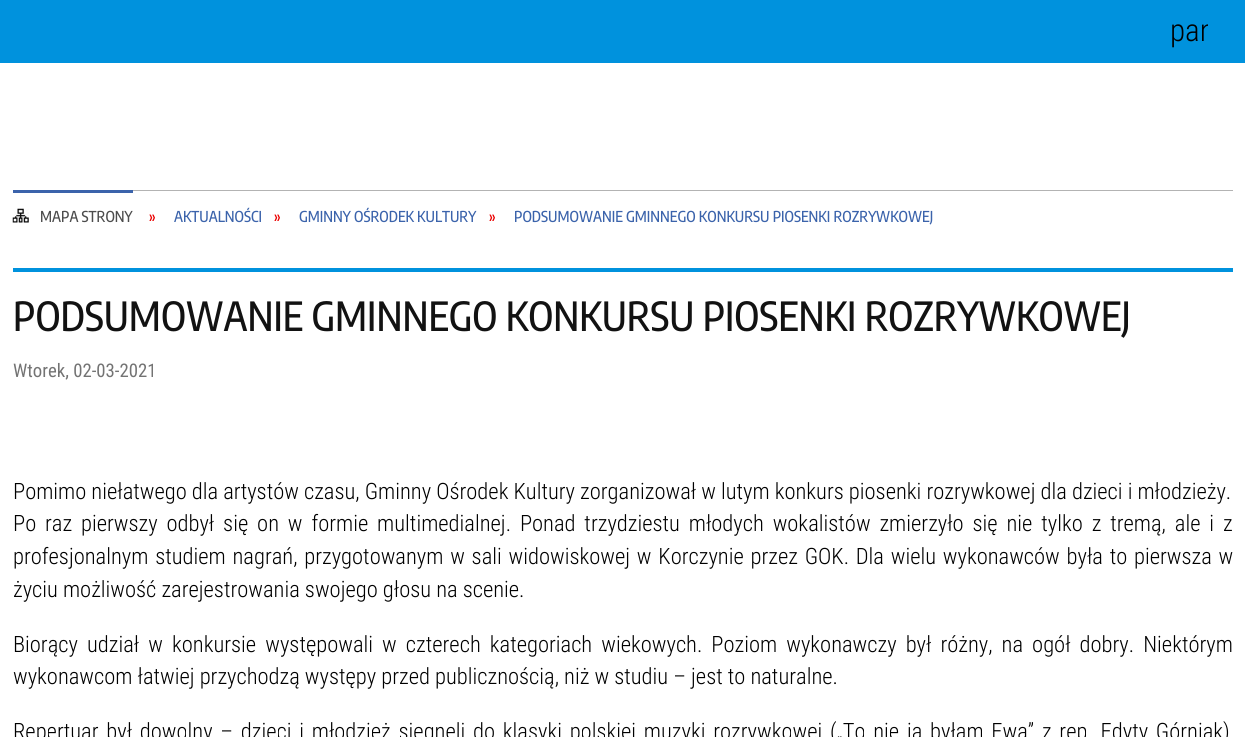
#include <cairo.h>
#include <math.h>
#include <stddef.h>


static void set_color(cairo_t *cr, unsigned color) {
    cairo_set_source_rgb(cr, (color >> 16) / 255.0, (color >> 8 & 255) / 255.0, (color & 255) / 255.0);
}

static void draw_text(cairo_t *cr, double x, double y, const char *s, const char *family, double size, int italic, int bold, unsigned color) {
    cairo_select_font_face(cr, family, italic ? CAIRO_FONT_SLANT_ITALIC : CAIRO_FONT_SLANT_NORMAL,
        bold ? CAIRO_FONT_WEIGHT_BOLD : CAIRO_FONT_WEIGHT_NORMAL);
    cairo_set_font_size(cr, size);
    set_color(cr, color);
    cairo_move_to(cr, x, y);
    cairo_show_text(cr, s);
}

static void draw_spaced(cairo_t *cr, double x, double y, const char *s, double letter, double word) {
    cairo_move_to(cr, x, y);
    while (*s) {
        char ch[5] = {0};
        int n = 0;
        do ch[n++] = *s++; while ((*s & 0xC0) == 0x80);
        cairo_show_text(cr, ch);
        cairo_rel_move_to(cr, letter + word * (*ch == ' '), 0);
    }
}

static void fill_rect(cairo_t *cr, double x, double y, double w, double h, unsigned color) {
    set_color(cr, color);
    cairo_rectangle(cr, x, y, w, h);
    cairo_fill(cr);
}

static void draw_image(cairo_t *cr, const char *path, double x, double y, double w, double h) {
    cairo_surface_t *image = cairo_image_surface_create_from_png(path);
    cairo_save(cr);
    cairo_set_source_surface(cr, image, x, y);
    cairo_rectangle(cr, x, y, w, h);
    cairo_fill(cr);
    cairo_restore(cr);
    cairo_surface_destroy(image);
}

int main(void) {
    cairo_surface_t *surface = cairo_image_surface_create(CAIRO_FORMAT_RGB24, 1245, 737);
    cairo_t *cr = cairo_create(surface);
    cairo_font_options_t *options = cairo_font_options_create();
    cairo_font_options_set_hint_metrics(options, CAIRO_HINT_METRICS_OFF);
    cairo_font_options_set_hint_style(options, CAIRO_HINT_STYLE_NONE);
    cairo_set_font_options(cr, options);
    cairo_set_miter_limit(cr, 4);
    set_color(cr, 0xFFFFFF);
    cairo_paint(cr);
    fill_rect(cr, 0, 0, 1245, 63, 0x0092DD);
    cairo_save(cr);
    cairo_rectangle(cr, 1170, 13, 38, 37);
    cairo_clip(cr);
    draw_text(cr, 1170, 41, "pan", "Roboto Condensed Light", 31, 0, 0, 0x000000);
    cairo_restore(cr);
    fill_rect(cr, 133, 190, 1100, 1, 0xB3B3B3);
    draw_image(cr, "assets/img1.png", 12, 208, 17, 15);
    fill_rect(cr, 13, 190, 120, 3, 0x3B63AB);
    draw_text(cr, 40, 222, "MAPA STRONY", "Encode Sans Condensed Medium", 15, 0, 0, 0x4C4C4C);
    draw_text(cr, 149, 222, "»", "Encode Sans Condensed Medium", 15, 0, 0, 0xEB0000);
    draw_text(cr, 174, 222, "AKTUALNOŚCI", "Encode Sans Condensed Medium", 15, 0, 0, 0x3B63AB);
    draw_text(cr, 274, 222, "»", "Encode Sans Condensed Medium", 15, 0, 0, 0xEB0000);
    draw_text(cr, 299, 222, "GMINNY OŚRODEK KULTURY", "Encode Sans Condensed Medium", 15, 0, 0, 0x3B63AB);
    draw_text(cr, 489, 222, "»", "Encode Sans Condensed Medium", 15, 0, 0, 0xEB0000);
    draw_text(cr, 514, 222, "PODSUMOWANIE GMINNEGO KONKURSU PIOSENKI ROZRYWKOWEJ", "Encode Sans Condensed Medium", 15, 0, 0, 0x3B63AB);
    fill_rect(cr, 13, 268, 1220, 4, 0x0092DD);
    draw_text(cr, 13, 331, "PODSUMOWANIE GMINNEGO KONKURSU PIOSENKI ROZRYWKOWEJ", "Encode Sans Condensed Medium", 40, 0, 0, 0x121212);
    draw_text(cr, 13, 377, "Wtorek, 02-03-2021", "Roboto Condensed", 18.75, 0, 0, 0x737373);
    draw_text(cr, 13, 499, "Pomimo niełatwego dla artystów czasu, Gminny Ośrodek Kultury zorganizował w lutym konkurs piosenki rozrywkowej dla dzieci i młodzieży.", "Roboto Condensed Light", 22.5, 0, 0, 0x000000);
    draw_spaced(cr, 13, 531, "Po raz pierwszy odbył się on w formie multimedialnej. Ponad trzydziestu młodych wokalistów zmierzyło się nie tylko z tremą, ale i z", 0, 3.8);
    draw_spaced(cr, 13, 564, "profesjonalnym studiem nagrań, przygotowanym w sali widowiskowej w Korczynie przez GOK. Dla wielu wykonawców była to pierwsza w", 0, 1.7);
    draw_text(cr, 13, 597, "życiu możliwość zarejestrowania swojego głosu na scenie.", "Roboto Condensed Light", 22.5, 0, 0, 0x000000);
    draw_spaced(cr, 13, 652, "Biorący udział w konkursie występowali w czterech kategoriach wiekowych. Poziom wykonawczy był różny, na ogół dobry. Niektórym", 0, 4);
    draw_text(cr, 13, 684, "wykonawcom łatwiej przychodzą występy przed publicznością, niż w studiu – jest to naturalne.", "Roboto Condensed Light", 22.5, 0, 0, 0x000000);
    draw_spaced(cr, 13, 739, "Repertuar był dowolny – dzieci i młodzież sięgnęli do klasyki polskiej muzyki rozrywkowej („To nie ja byłam Ewą” z rep. Edyty Górniak)", 0, 2.7);
    cairo_surface_write_to_png(surface, "output.png");
    cairo_font_options_destroy(options);
    cairo_destroy(cr);
    cairo_surface_destroy(surface);
    return 0;
}
